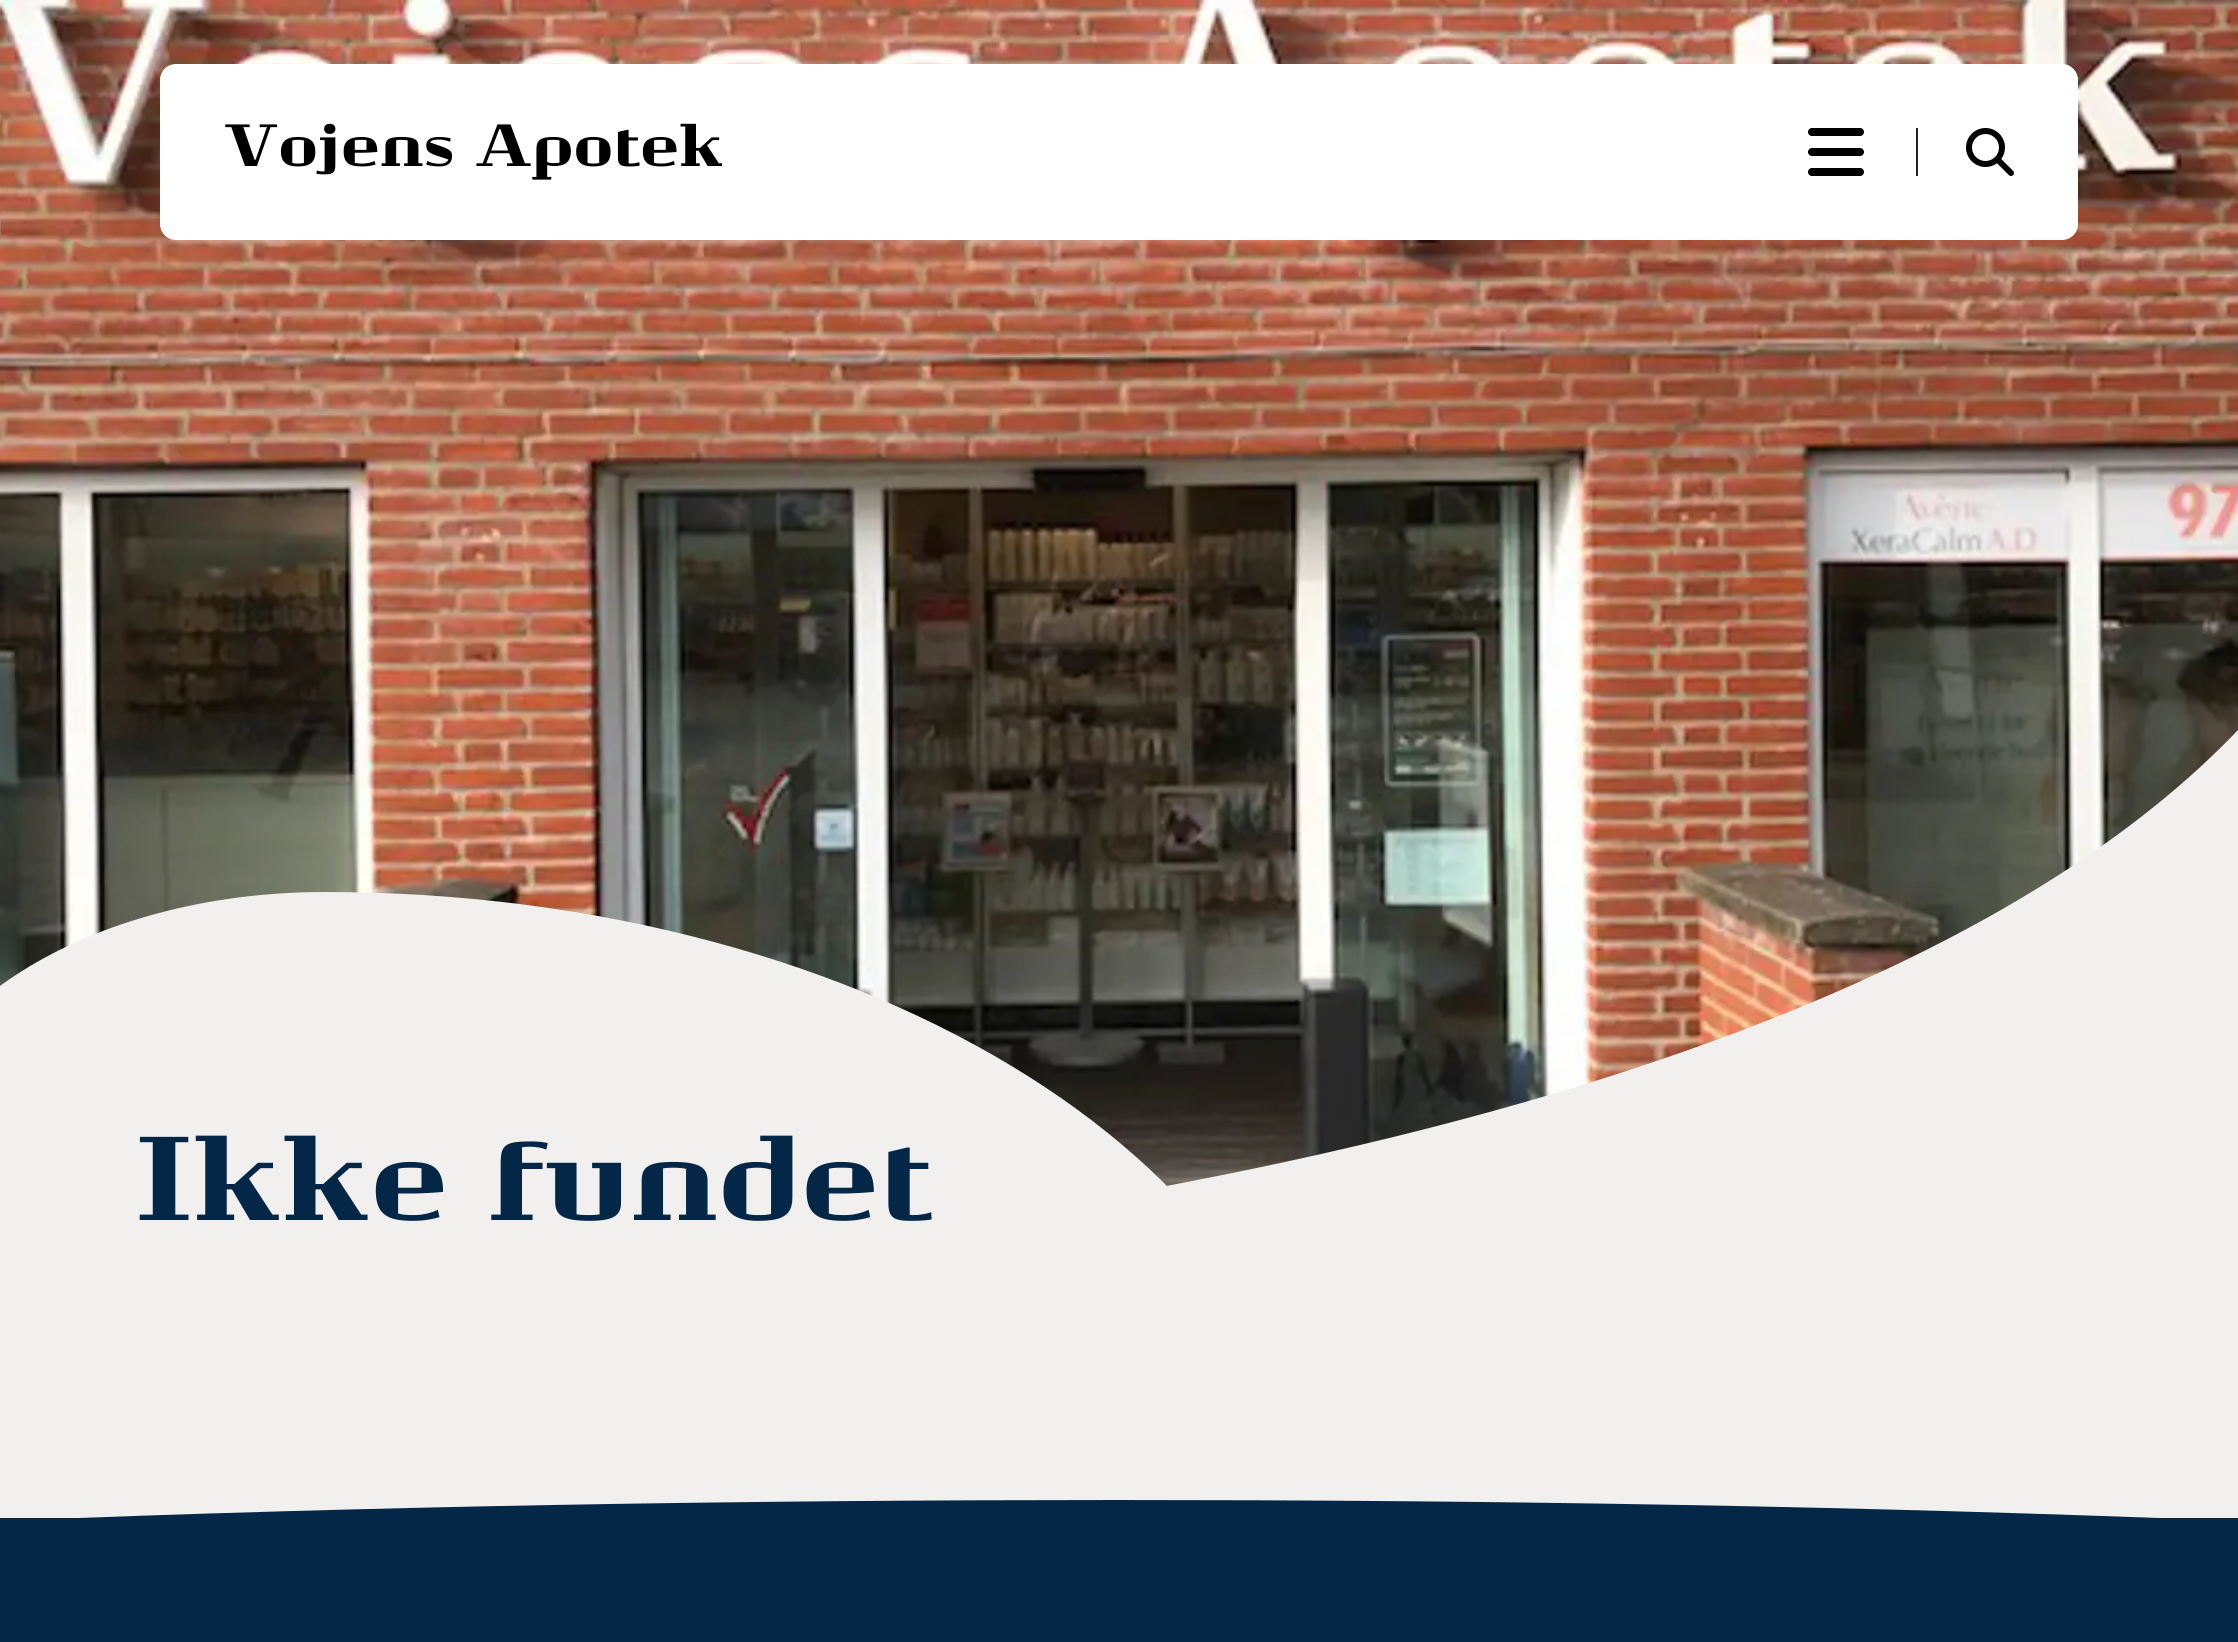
#include <cairo.h>
#include <math.h>
#include <stddef.h>


static void set_color(cairo_t *cr, unsigned color) {
    cairo_set_source_rgb(cr, (color >> 16) / 255.0, (color >> 8 & 255) / 255.0, (color & 255) / 255.0);
}

static void draw_text(cairo_t *cr, double x, double y, const char *s, const char *family, double size, int italic, int bold, unsigned color) {
    cairo_select_font_face(cr, family, italic ? CAIRO_FONT_SLANT_ITALIC : CAIRO_FONT_SLANT_NORMAL,
        bold ? CAIRO_FONT_WEIGHT_BOLD : CAIRO_FONT_WEIGHT_NORMAL);
    cairo_set_font_size(cr, size);
    set_color(cr, color);
    cairo_move_to(cr, x, y);
    cairo_show_text(cr, s);
}

static void fill_rect(cairo_t *cr, double x, double y, double w, double h, unsigned color) {
    set_color(cr, color);
    cairo_rectangle(cr, x, y, w, h);
    cairo_fill(cr);
}

static void rounded_rect(cairo_t *cr, double x, double y, double w, double h, double r) {
    cairo_new_sub_path(cr);
    cairo_arc(cr, x + w - r, y + h - r, r, 0, M_PI / 2);
    cairo_arc(cr, x + r, y + h - r, r, M_PI / 2, M_PI);
    cairo_arc(cr, x + r, y + r, r, M_PI, 1.5 * M_PI);
    cairo_arc(cr, x + w - r, y + r, r, 1.5 * M_PI, 2 * M_PI);
    cairo_close_path(cr);
}

static void draw_image(cairo_t *cr, const char *path, double x, double y, double w, double h) {
    cairo_surface_t *image = cairo_image_surface_create_from_png(path);
    cairo_save(cr);
    cairo_set_source_surface(cr, image, x, y);
    cairo_rectangle(cr, x, y, w, h);
    cairo_fill(cr);
    cairo_restore(cr);
    cairo_surface_destroy(image);
}

int main(void) {
    cairo_surface_t *surface = cairo_image_surface_create(CAIRO_FORMAT_RGB24, 2238, 1642);
    cairo_t *cr = cairo_create(surface);
    cairo_font_options_t *options = cairo_font_options_create();
    cairo_font_options_set_hint_metrics(options, CAIRO_HINT_METRICS_OFF);
    cairo_font_options_set_hint_style(options, CAIRO_HINT_STYLE_NONE);
    cairo_set_font_options(cr, options);
    cairo_set_miter_limit(cr, 4);
    set_color(cr, 0xF2F0EF);
    cairo_paint(cr);
    draw_image(cr, "assets/img3.png", 0, 0, 2238, 1186);
    set_color(cr, 0xFFFFFF);
    rounded_rect(cr, 160, 64, 1918, 176, 16);
    cairo_fill(cr);
    draw_text(cr, 224, 166, "Vojens Apotek", "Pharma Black", 60, 0, 0, 0x000000);
    draw_image(cr, "assets/img1.png", 1808, 128, 56, 48);
    fill_rect(cr, 1916, 128, 2, 48, 0x222222);
    draw_image(cr, "assets/img2.png", 1966, 128, 48, 48);
    set_color(cr, 0xF2F0EF);
    cairo_new_path(cr);
    cairo_move_to(cr, 1047, 1207);
    cairo_curve_to(cr, 612, 1279, 243, 1244, 0, 1002);
    cairo_line_to(cr, 0, 1240);
    cairo_line_to(cr, 2238, 1240);
    cairo_line_to(cr, 2238, 730);
    cairo_curve_to(cr, 2049, 928, 1679, 1103, 1047, 1207);
    cairo_close_path(cr);
    cairo_fill(cr);
    cairo_new_path(cr);
    cairo_move_to(cr, 325, 892);
    cairo_curve_to(cr, 874, 892, 1320, 1174, 1320, 1521);
    cairo_line_to(cr, 1320, 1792);
    cairo_line_to(cr, -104, 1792);
    cairo_line_to(cr, -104, 1163);
    cairo_curve_to(cr, -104, 1013, 88, 892, 325, 892);
    cairo_close_path(cr);
    cairo_fill(cr);
    draw_text(cr, 135, 1220, "Ikke fundet", "Pharma Black", 120, 0, 0, 0x042747);
    fill_rect(cr, 0, 1518, 2238, 124, 0x042747);
    cairo_save(cr);
    cairo_rectangle(cr, 0, 1500, 2236, 20);
    cairo_clip(cr);
    cairo_new_path(cr);
    cairo_move_to(cr, 0, 1521);
    cairo_line_to(cr, 2236, 1521);
    cairo_curve_to(cr, 1864, 1506, 1491, 1500, 1118, 1500);
    cairo_curve_to(cr, 745, 1500, 372, 1506, 0, 1521);
    cairo_close_path(cr);
    cairo_fill(cr);
    cairo_restore(cr);
    cairo_surface_write_to_png(surface, "output.png");
    cairo_font_options_destroy(options);
    cairo_destroy(cr);
    cairo_surface_destroy(surface);
    return 0;
}
